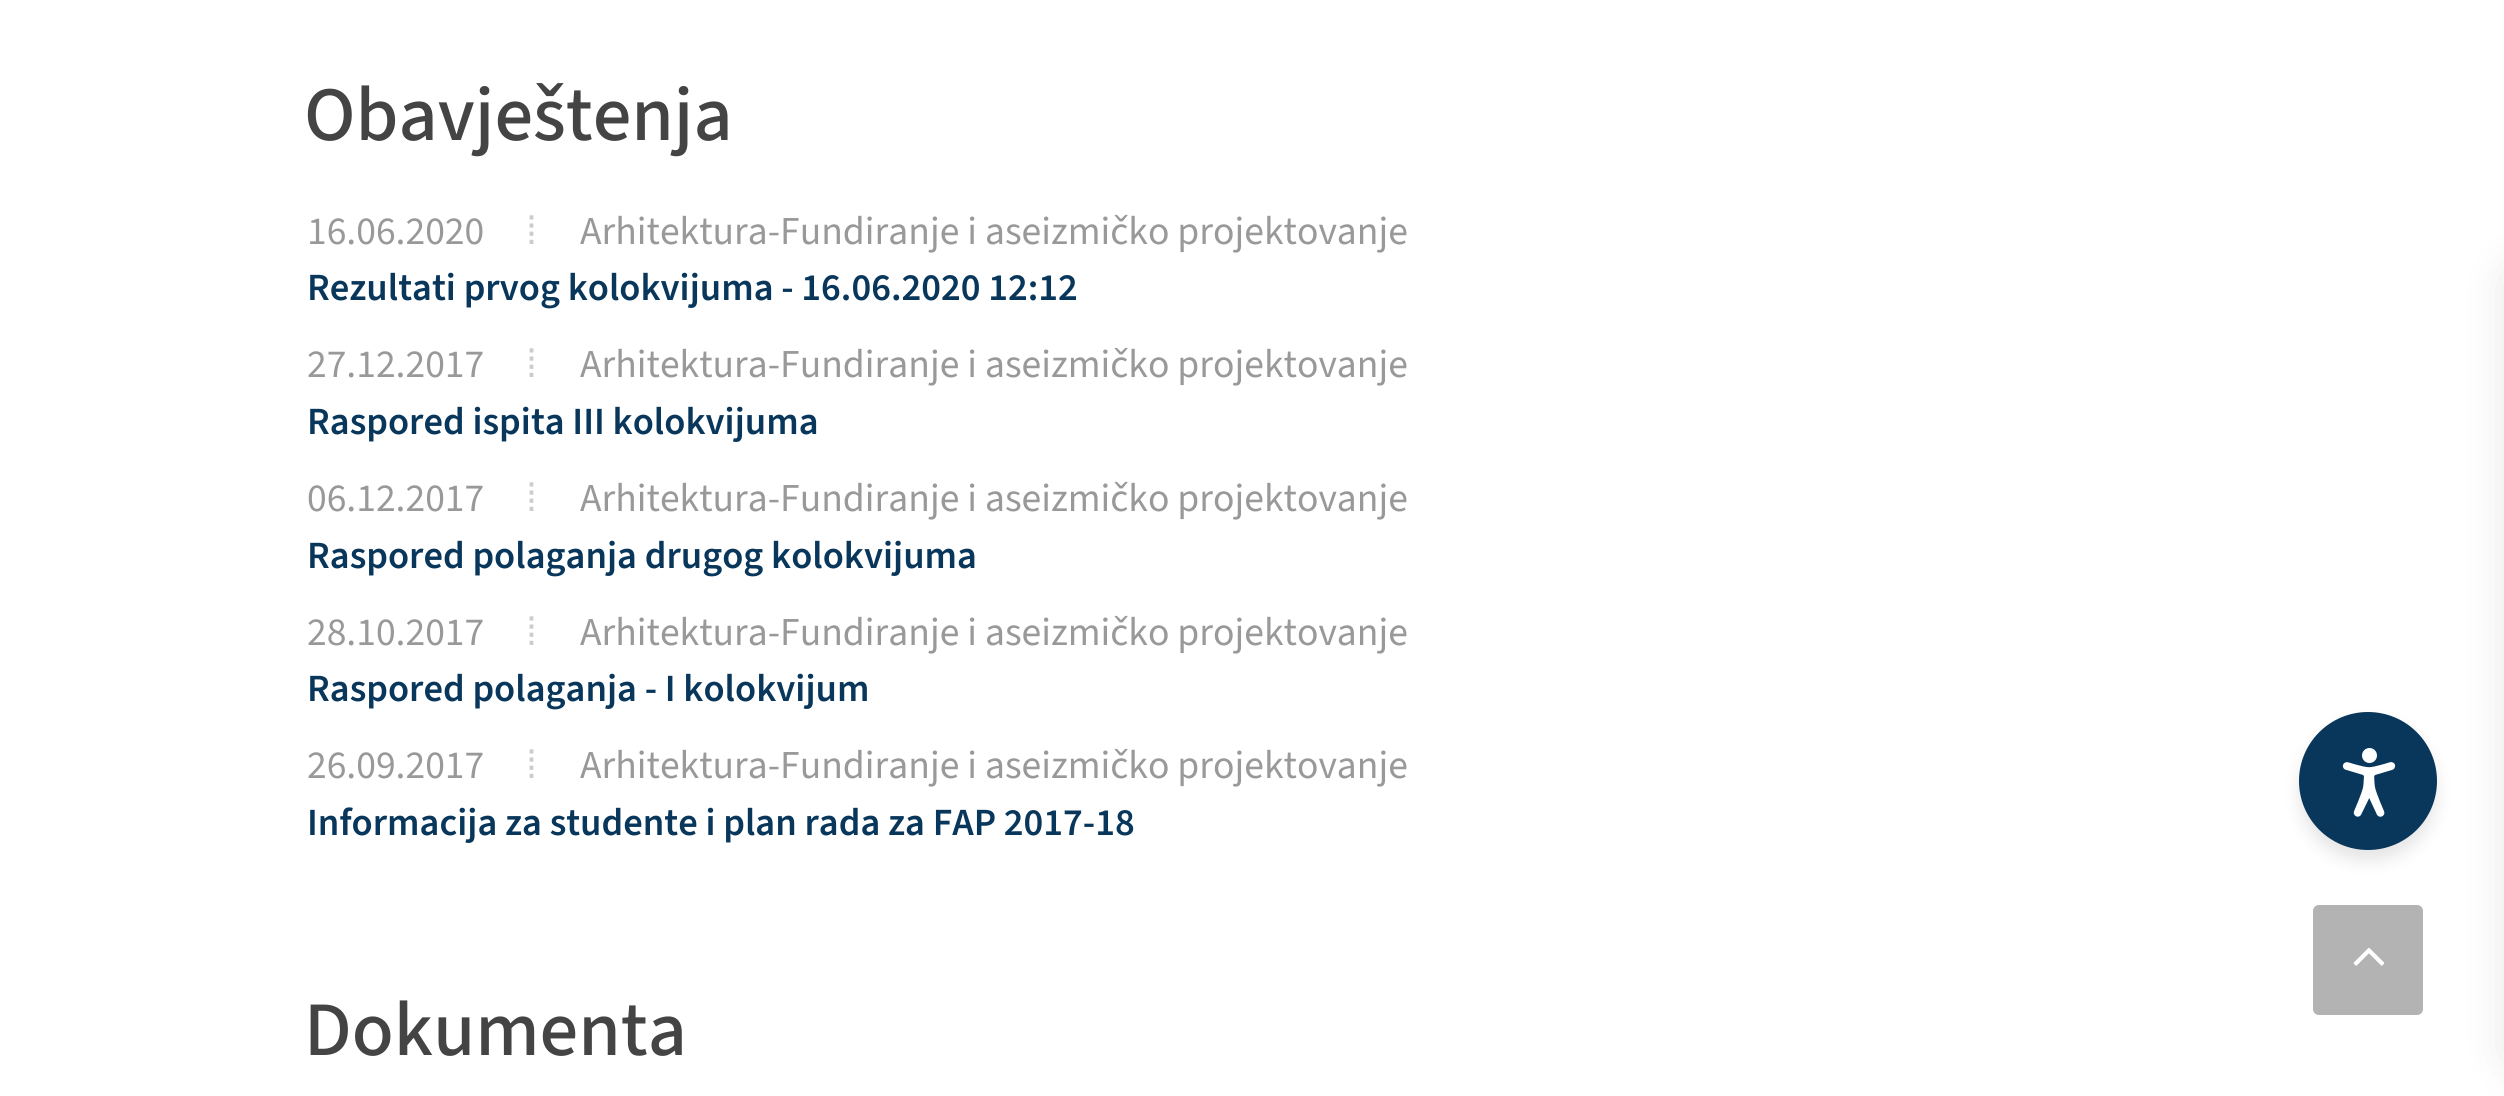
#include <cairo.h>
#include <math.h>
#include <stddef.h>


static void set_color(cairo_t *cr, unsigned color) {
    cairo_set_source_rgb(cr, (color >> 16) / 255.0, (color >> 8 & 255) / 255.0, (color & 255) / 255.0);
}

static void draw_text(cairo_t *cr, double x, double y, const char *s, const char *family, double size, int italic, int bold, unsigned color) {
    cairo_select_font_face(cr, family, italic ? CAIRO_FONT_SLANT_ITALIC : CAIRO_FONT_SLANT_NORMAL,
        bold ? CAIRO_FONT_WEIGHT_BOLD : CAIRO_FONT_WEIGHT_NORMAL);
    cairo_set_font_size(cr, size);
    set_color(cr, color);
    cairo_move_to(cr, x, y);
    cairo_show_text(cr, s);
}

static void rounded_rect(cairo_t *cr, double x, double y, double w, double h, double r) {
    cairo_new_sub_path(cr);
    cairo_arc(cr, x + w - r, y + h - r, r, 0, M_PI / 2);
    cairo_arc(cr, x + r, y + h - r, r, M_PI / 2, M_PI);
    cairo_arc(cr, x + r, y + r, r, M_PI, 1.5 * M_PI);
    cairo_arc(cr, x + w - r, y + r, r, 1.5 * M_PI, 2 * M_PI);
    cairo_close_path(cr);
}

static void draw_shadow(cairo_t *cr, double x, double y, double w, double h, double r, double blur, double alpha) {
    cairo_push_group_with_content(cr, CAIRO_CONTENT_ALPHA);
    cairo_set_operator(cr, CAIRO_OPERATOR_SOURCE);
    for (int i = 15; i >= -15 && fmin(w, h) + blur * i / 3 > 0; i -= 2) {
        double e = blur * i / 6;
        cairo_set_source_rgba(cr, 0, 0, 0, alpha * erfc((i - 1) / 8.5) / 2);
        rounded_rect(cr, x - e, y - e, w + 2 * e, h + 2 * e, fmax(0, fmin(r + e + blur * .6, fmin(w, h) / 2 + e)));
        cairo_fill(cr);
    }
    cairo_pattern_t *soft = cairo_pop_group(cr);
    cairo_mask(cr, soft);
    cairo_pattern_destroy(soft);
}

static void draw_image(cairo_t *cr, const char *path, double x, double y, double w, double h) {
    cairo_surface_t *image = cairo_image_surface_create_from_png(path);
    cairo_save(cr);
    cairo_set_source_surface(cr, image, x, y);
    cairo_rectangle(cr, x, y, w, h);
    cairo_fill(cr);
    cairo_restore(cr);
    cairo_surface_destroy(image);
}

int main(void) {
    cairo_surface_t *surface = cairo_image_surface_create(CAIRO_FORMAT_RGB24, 2504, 1096);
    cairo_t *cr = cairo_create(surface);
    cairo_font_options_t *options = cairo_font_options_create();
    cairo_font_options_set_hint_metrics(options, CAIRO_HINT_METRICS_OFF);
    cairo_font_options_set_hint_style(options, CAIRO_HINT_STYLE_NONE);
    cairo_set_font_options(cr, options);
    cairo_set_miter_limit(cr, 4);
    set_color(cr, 0xFFFFFF);
    cairo_paint(cr);
    draw_text(cr, 304, 140, "Obavještenja", "Source Sans 3 Medium", 77, 0, 0, 0x444444);
    draw_text(cr, 307, 244, "16.06.2020", "Source Sans 3", 39.6, 0, 0, 0x999999);
    draw_text(cr, 526, 244, "⁞", "Liberation Sans", 39.6, 0, 0, 0xCCCCCC);
    draw_text(cr, 580, 244, "Arhitektura-Fundiranje i aseizmičko projektovanje", "Source Sans 3", 39.6, 0, 0, 0x999999);
    draw_text(cr, 307, 300, "Rezultati prvog kolokvijuma - 16.06.2020 12:12", "Source Sans 3 SemiBold", 38.5, 0, 0, 0x09375C);
    draw_text(cr, 307, 377, "27.12.2017", "Source Sans 3", 39.6, 0, 0, 0x999999);
    draw_text(cr, 526, 377, "⁞", "Liberation Sans", 39.6, 0, 0, 0xCCCCCC);
    draw_text(cr, 580, 377, "Arhitektura-Fundiranje i aseizmičko projektovanje", "Source Sans 3", 39.6, 0, 0, 0x999999);
    draw_text(cr, 307, 434, "Raspored ispita III kolokvijuma", "Source Sans 3 SemiBold", 38.5, 0, 0, 0x09375C);
    draw_text(cr, 307, 511, "06.12.2017", "Source Sans 3", 39.6, 0, 0, 0x999999);
    draw_text(cr, 526, 511, "⁞", "Liberation Sans", 39.6, 0, 0, 0xCCCCCC);
    draw_text(cr, 580, 511, "Arhitektura-Fundiranje i aseizmičko projektovanje", "Source Sans 3", 39.6, 0, 0, 0x999999);
    draw_text(cr, 307, 568, "Raspored polaganja drugog kolokvijuma", "Source Sans 3 SemiBold", 38.5, 0, 0, 0x09375C);
    draw_text(cr, 307, 645, "28.10.2017", "Source Sans 3", 39.6, 0, 0, 0x999999);
    draw_text(cr, 526, 645, "⁞", "Liberation Sans", 39.6, 0, 0, 0xCCCCCC);
    draw_text(cr, 580, 645, "Arhitektura-Fundiranje i aseizmičko projektovanje", "Source Sans 3", 39.6, 0, 0, 0x999999);
    draw_text(cr, 307, 701, "Raspored polaganja - I kolokvijum", "Source Sans 3 SemiBold", 38.5, 0, 0, 0x09375C);
    draw_text(cr, 307, 778, "26.09.2017", "Source Sans 3", 39.6, 0, 0, 0x999999);
    draw_text(cr, 526, 778, "⁞", "Liberation Sans", 39.6, 0, 0, 0xCCCCCC);
    draw_text(cr, 580, 778, "Arhitektura-Fundiranje i aseizmičko projektovanje", "Source Sans 3", 39.6, 0, 0, 0x999999);
    draw_text(cr, 307, 835, "Informacija za studente i plan rada za FAP 2017-18", "Source Sans 3 SemiBold", 38.5, 0, 0, 0x09375C);
    draw_text(cr, 304, 1055, "Dokumenta", "Source Sans 3 Medium", 77, 0, 0, 0x444444);
    set_color(cr, 0x000000);
    draw_shadow(cr, 2299, 723, 138, 138, 69, 8, 0.1);
    set_color(cr, 0x09375C);
    cairo_arc(cr, 2368, 781, 69, 0, 2 * M_PI);
    cairo_fill(cr);
    draw_image(cr, "assets/img1.png", 2342, 748, 54, 69);
    set_color(cr, 0x000000);
    draw_shadow(cr, 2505, 261, 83, 812, 22, 20.5, 0.1);
    set_color(cr, 0xB3B3B3);
    rounded_rect(cr, 2313, 905, 110, 110, 6);
    cairo_fill(cr);
    draw_image(cr, "assets/img2.png", 2353, 947, 32, 19);
    cairo_surface_write_to_png(surface, "output.png");
    cairo_font_options_destroy(options);
    cairo_destroy(cr);
    cairo_surface_destroy(surface);
    return 0;
}
